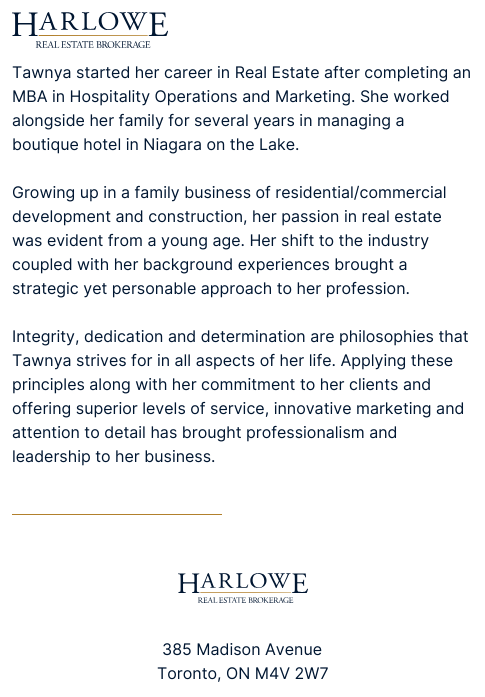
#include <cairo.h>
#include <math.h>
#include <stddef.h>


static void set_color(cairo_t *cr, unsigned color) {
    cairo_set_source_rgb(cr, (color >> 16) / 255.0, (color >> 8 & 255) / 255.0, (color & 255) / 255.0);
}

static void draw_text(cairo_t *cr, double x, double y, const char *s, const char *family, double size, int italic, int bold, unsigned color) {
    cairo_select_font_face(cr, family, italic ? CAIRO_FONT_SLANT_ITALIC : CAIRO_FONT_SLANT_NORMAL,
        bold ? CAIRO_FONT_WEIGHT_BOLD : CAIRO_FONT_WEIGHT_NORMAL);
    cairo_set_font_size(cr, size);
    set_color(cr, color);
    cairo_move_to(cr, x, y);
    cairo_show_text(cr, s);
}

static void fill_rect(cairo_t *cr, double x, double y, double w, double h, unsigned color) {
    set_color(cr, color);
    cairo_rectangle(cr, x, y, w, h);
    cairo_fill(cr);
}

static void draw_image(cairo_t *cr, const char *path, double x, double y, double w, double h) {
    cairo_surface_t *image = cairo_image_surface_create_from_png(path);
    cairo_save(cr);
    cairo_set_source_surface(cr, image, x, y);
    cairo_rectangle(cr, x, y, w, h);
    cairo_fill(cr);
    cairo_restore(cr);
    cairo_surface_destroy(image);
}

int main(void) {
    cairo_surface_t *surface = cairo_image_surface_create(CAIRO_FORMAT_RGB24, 485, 697);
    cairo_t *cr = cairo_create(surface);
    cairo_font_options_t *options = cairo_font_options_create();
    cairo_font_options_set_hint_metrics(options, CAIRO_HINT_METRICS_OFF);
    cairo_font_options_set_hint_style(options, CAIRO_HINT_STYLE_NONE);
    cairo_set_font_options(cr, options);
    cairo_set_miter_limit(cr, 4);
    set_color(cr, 0xFFFFFF);
    cairo_paint(cr);
    draw_image(cr, "assets/img1.png", 12, 12, 156, 36);
    draw_text(cr, 12, 78, "Tawnya started her career in Real Estate after completing an", "Inter", 16, 0, 0, 0x001631);
    draw_text(cr, 12, 102, "MBA in Hospitality Operations and Marketing. She worked", "Inter", 16, 0, 0, 0x001631);
    draw_text(cr, 12, 126, "alongside her family for several years in managing a", "Inter", 16, 0, 0, 0x001631);
    draw_text(cr, 12, 150, "boutique hotel in Niagara on the Lake.", "Inter", 16, 0, 0, 0x001631);
    draw_text(cr, 12, 198, "Growing up in a family business of residential/commercial", "Inter", 16, 0, 0, 0x001631);
    draw_text(cr, 12, 222, "development and construction, her passion in real estate", "Inter", 16, 0, 0, 0x001631);
    draw_text(cr, 12, 246, "was evident from a young age. Her shift to the industry", "Inter", 16, 0, 0, 0x001631);
    draw_text(cr, 12, 270, "coupled with her background experiences brought a", "Inter", 16, 0, 0, 0x001631);
    draw_text(cr, 12, 294, "strategic yet personable approach to her profession.", "Inter", 16, 0, 0, 0x001631);
    draw_text(cr, 12, 342, "Integrity, dedication and determination are philosophies that", "Inter", 16, 0, 0, 0x001631);
    draw_text(cr, 12, 366, "Tawnya strives for in all aspects of her life. Applying these", "Inter", 16, 0, 0, 0x001631);
    draw_text(cr, 12, 390, "principles along with her commitment to her clients and", "Inter", 16, 0, 0, 0x001631);
    draw_text(cr, 12, 414, "offering superior levels of service, innovative marketing and", "Inter", 16, 0, 0, 0x001631);
    draw_text(cr, 12, 438, "attention to detail has brought professionalism and", "Inter", 16, 0, 0, 0x001631);
    draw_text(cr, 12, 462, "leadership to her business.", "Inter", 16, 0, 0, 0x001631);
    fill_rect(cr, 12, 514, 210, 1, 0xB2802C);
    draw_image(cr, "assets/img2.png", 178, 573, 130, 30);
    draw_text(cr, 162, 655, "385 Madison Avenue", "Inter", 16, 0, 0, 0x001631);
    draw_text(cr, 157, 679, "Toronto, ON M4V 2W7", "Inter", 16, 0, 0, 0x001631);
    cairo_surface_write_to_png(surface, "output.png");
    cairo_font_options_destroy(options);
    cairo_destroy(cr);
    cairo_surface_destroy(surface);
    return 0;
}
